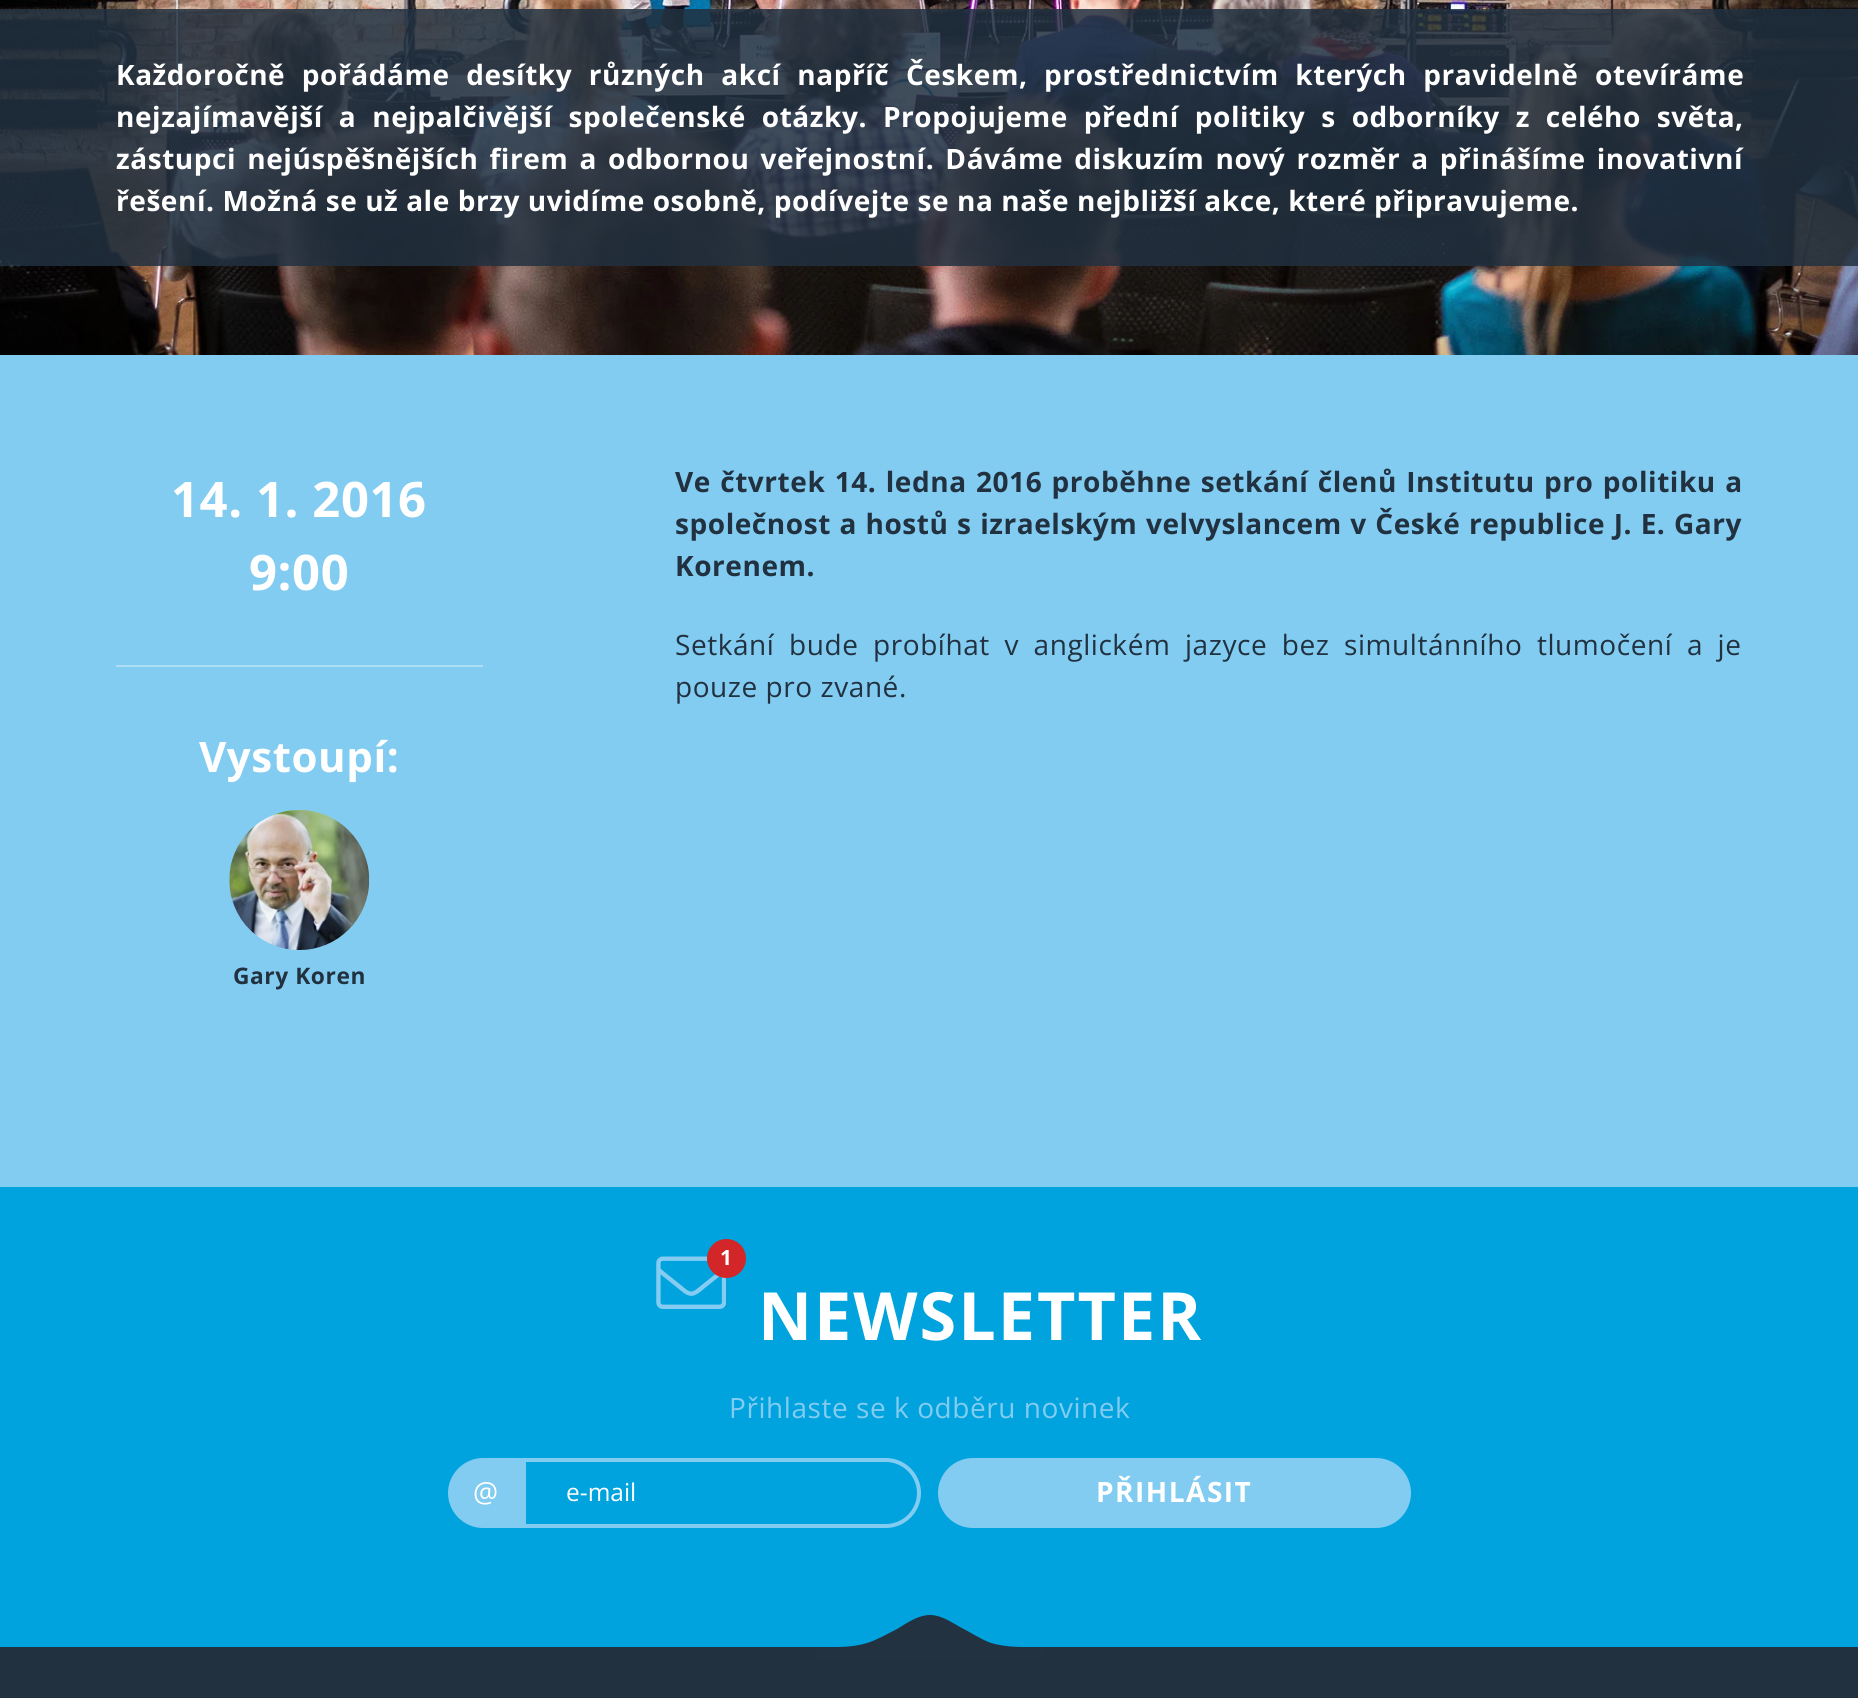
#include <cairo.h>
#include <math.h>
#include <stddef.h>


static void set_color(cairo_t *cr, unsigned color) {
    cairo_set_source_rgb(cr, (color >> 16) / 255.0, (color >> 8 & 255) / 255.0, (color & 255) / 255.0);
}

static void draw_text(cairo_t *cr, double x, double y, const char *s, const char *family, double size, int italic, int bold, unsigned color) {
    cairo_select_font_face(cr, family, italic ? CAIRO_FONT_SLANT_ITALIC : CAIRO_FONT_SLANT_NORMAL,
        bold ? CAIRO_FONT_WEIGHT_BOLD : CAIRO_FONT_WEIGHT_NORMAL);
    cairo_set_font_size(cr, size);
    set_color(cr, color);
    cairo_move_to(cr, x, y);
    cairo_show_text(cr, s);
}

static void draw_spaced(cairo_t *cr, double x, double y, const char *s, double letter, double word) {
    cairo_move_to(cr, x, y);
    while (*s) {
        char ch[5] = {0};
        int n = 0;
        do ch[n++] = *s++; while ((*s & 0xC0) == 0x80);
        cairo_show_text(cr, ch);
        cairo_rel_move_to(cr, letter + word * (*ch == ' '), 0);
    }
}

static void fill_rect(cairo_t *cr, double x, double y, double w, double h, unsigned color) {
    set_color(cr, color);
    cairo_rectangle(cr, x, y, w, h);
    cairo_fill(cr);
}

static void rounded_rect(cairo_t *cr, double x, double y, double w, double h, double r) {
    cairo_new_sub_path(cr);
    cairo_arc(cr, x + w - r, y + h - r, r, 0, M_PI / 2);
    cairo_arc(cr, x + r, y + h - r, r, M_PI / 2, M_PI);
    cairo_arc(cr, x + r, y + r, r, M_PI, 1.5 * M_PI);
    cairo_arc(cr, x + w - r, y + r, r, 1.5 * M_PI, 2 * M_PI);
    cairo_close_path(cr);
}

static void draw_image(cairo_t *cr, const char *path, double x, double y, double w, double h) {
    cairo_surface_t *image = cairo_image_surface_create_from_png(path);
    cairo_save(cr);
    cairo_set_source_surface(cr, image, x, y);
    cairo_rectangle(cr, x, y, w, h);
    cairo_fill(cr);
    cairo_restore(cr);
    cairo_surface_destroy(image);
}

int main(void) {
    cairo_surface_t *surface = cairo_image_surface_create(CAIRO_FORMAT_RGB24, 1858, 1698);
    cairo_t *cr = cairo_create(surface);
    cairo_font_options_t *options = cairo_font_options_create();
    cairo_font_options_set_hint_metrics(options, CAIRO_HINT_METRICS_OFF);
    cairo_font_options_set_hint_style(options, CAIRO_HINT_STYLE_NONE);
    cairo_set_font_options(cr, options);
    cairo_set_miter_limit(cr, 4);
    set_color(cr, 0x82CCF1);
    cairo_paint(cr);
    draw_image(cr, "assets/img1.png", 0, 0, 1858, 355);
    cairo_set_source_rgba(cr, 0.129, 0.192, 0.251, 0.85);
    cairo_rectangle(cr, 0, 9, 1858, 257);
    cairo_fill(cr);
    cairo_select_font_face(cr, "Open Sans", CAIRO_FONT_SLANT_NORMAL, CAIRO_FONT_WEIGHT_BOLD);
    cairo_set_font_size(cr, 28);
    set_color(cr, 0xFFFFFF);
    draw_spaced(cr, 116, 85, "Každoročně pořádáme desítky různých akcí napříč Českem, prostřednictvím kterých pravidelně otevíráme", 0.56, 8.75);
    draw_spaced(cr, 116, 127, "nejzajímavější a nejpalčivější společenské otázky. Propojujeme přední politiky s odborníky z celého světa,", 0.56, 8.1);
    draw_spaced(cr, 116, 169, "zástupci nejúspěšnějších firem a odbornou veřejnostní. Dáváme diskuzím nový rozměr a přinášíme inovativní", 0.56, 3.25);
    draw_spaced(cr, 116, 211, "řešení. Možná se už ale brzy uvidíme osobně, podívejte se na naše nejbližší akce, které připravujeme.", 0.56, 0);
    cairo_set_font_size(cr, 49);
    draw_spaced(cr, 171, 517, "14. 1. 2016", 0.56, 0);
    draw_spaced(cr, 249, 590, "9:00", 0.56, 0);
    fill_rect(cr, 116, 665, 367, 2, 0xAEDEF6);
    cairo_set_font_size(cr, 42);
    set_color(cr, 0xFFFFFF);
    draw_spaced(cr, 199, 772, "Vystoupí:", 0.56, 0);
    draw_image(cr, "assets/img2.png", 229, 810, 141, 140);
    cairo_set_font_size(cr, 22.75);
    set_color(cr, 0x213140);
    draw_spaced(cr, 233, 984, "Gary Koren", 0.56, 0);
    cairo_set_font_size(cr, 28);
    draw_spaced(cr, 675, 492, "Ve čtvrtek 14. ledna 2016 proběhne setkání členů Institutu pro politiku a", 0.56, 1.5);
    draw_spaced(cr, 675, 534, "společnost a hostů s izraelským velvyslancem v České republice J. E. Gary", 0.56, 0.75);
    draw_spaced(cr, 675, 576, "Korenem.", 0.56, 0);
    cairo_select_font_face(cr, "Open Sans", CAIRO_FONT_SLANT_NORMAL, CAIRO_FONT_WEIGHT_NORMAL);
    draw_spaced(cr, 675, 655, "Setkání bude probíhat v anglickém jazyce bez simultánního tlumočení a je", 0.56, 6.75);
    draw_spaced(cr, 675, 697, "pouze pro zvané.", 0.56, 0);
    fill_rect(cr, 0, 1187, 1858, 460, 0x00A3DD);
    draw_image(cr, "assets/img3.png", 656, 1256, 70, 53);
    set_color(cr, 0xD22628);
    cairo_arc(cr, 726.5, 1258.5, 19.5, 0, 2 * M_PI);
    cairo_fill(cr);
    cairo_select_font_face(cr, "Open Sans", CAIRO_FONT_SLANT_NORMAL, CAIRO_FONT_WEIGHT_BOLD);
    cairo_set_font_size(cr, 21);
    set_color(cr, 0xFFFFFF);
    draw_spaced(cr, 720, 1265, "1", 2, 0);
    cairo_set_font_size(cr, 66.5);
    draw_spaced(cr, 758, 1340, "NEWSLETTER", 2, 0);
    cairo_select_font_face(cr, "Open Sans", CAIRO_FONT_SLANT_NORMAL, CAIRO_FONT_WEIGHT_NORMAL);
    cairo_set_font_size(cr, 28);
    set_color(cr, 0x82CCF1);
    draw_spaced(cr, 729, 1418, "Přihlaste se k odběru novinek", 0.56, 0);
    cairo_new_path(cr);
    cairo_move_to(cr, 483, 1460);
    cairo_line_to(cr, 521, 1460);
    cairo_line_to(cr, 521, 1526);
    cairo_line_to(cr, 483, 1526);
    cairo_curve_to(cr, 465, 1526, 450, 1511, 450, 1493);
    cairo_curve_to(cr, 450, 1475, 465, 1460, 483, 1460);
    cairo_close_path(cr);
    cairo_fill_preserve(cr);
    cairo_set_line_width(cr, 4);
    cairo_stroke(cr);
    set_color(cr, 0xFFFFFF);
    draw_spaced(cr, 473, 1502, "@", 0.56, 0);
    cairo_new_path(cr);
    cairo_move_to(cr, 524, 1460);
    cairo_line_to(cr, 886, 1460);
    cairo_curve_to(cr, 904, 1460, 919, 1475, 919, 1493);
    cairo_curve_to(cr, 919, 1511, 904, 1526, 886, 1526);
    cairo_line_to(cr, 524, 1526);
    cairo_close_path(cr);
    set_color(cr, 0x82CCF1);
    cairo_stroke(cr);
    draw_text(cr, 566, 1501, "e-mail", "Open Sans", 24.5, 0, 0, 0xFFFFFF);
    set_color(cr, 0x82CCF1);
    rounded_rect(cr, 940, 1460, 469, 66, 33);
    cairo_fill_preserve(cr);
    cairo_stroke(cr);
    cairo_select_font_face(cr, "Open Sans", CAIRO_FONT_SLANT_NORMAL, CAIRO_FONT_WEIGHT_BOLD);
    cairo_set_font_size(cr, 28);
    set_color(cr, 0xFFFFFF);
    draw_spaced(cr, 1096, 1502, "PŘIHLÁSIT", 1.5, 0);
    fill_rect(cr, 0, 1647, 1858, 51, 0x213140);
    set_color(cr, 0x223241);
    cairo_new_path(cr);
    cairo_move_to(cr, 897, 1629);
    cairo_curve_to(cr, 887, 1634, 877, 1640, 867, 1643);
    cairo_curve_to(cr, 851, 1648, 834, 1647, 817, 1647);
    cairo_line_to(cr, 817, 1659);
    cairo_line_to(cr, 1043, 1659);
    cairo_line_to(cr, 1043, 1647);
    cairo_curve_to(cr, 1026, 1647, 1008, 1648, 991, 1643);
    cairo_curve_to(cr, 980, 1639, 970, 1632, 960, 1627);
    cairo_curve_to(cr, 951, 1622, 941, 1615, 930, 1615);
    cairo_curve_to(cr, 918, 1615, 907, 1623, 897, 1629);
    cairo_fill(cr);
    cairo_surface_write_to_png(surface, "output.png");
    cairo_font_options_destroy(options);
    cairo_destroy(cr);
    cairo_surface_destroy(surface);
    return 0;
}
